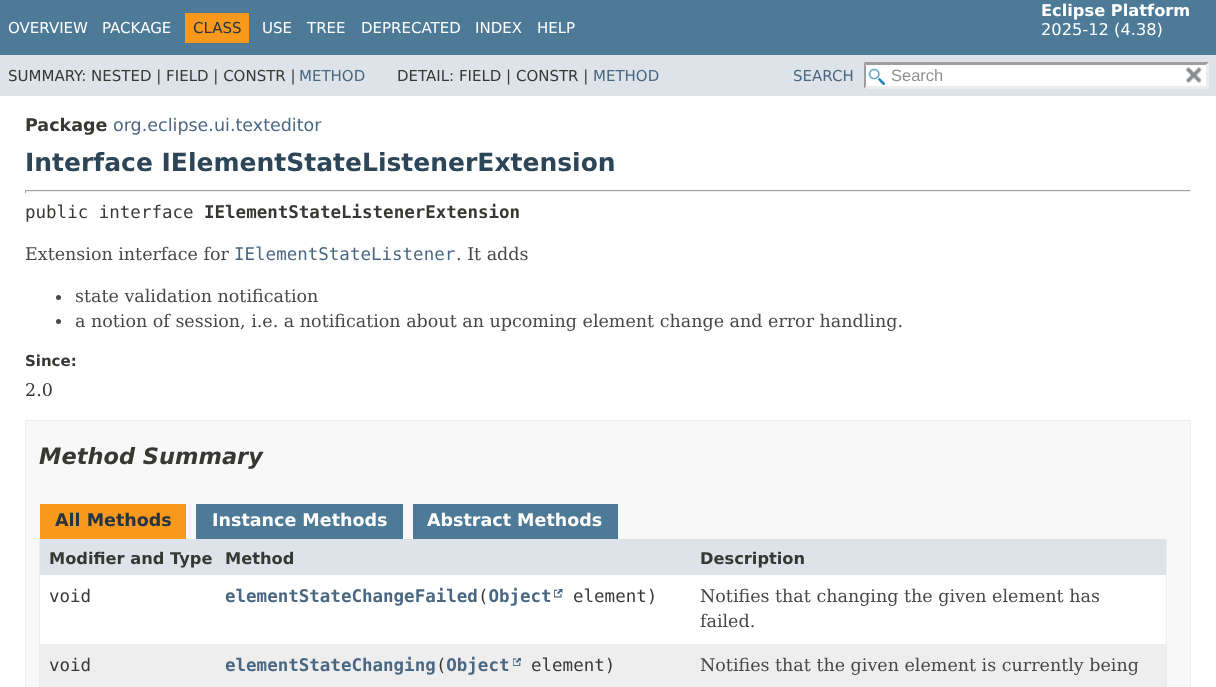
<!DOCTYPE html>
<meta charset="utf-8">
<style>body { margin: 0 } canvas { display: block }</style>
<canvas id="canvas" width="1216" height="687"></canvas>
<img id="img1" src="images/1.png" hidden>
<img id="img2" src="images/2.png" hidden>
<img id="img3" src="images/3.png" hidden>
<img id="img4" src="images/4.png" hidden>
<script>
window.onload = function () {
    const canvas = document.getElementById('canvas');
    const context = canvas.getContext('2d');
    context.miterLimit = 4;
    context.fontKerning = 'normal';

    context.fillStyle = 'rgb(255, 255, 255)';
    context.fillRect(0, 0, 1216, 687);
    context.fillStyle = 'rgb(77, 122, 151)';
    context.fillRect(0, 0, 1216, 55);
    context.fillStyle = 'rgb(248, 152, 29)';
    context.fillRect(185, 13, 64, 30);
    context.fillStyle = 'rgb(222, 227, 233)';
    context.fillRect(0, 55, 1216, 41);
    context.fillStyle = 'rgb(255, 255, 255)';
    context.fillRect(864, 63, 345, 26);
    context.drawImage(document.getElementById('img1'), 868, 68, 17, 17);
    context.fillStyle = 'rgb(158, 158, 158)';
    context.beginPath();
    context.moveTo(864, 62);
    context.lineTo(1209, 62);
    context.lineTo(1206, 65);
    context.lineTo(866, 65);
    context.closePath();
    context.fill();
    context.fillStyle = 'rgb(237, 237, 237)';
    context.beginPath();
    context.moveTo(1209, 62.5);
    context.lineTo(1209, 89);
    context.lineTo(1206, 86);
    context.lineTo(1206, 65);
    context.closePath();
    context.fill();
    context.beginPath();
    context.moveTo(1209, 89);
    context.lineTo(864, 89);
    context.lineTo(866, 86);
    context.lineTo(1206, 86);
    context.closePath();
    context.fill();
    context.fillStyle = 'rgb(158, 158, 158)';
    context.beginPath();
    context.moveTo(864, 89);
    context.lineTo(864, 62.5);
    context.lineTo(866, 65);
    context.lineTo(866, 86);
    context.closePath();
    context.fill();
    context.drawImage(document.getElementById('img2'), 1186, 67, 16, 16);
    context.fillStyle = 'rgb(159, 159, 159)';
    context.fillRect(25, 190, 1166, 1);
    context.fillStyle = 'rgb(238, 238, 238)';
    context.fillRect(1190, 190, 1, 3);
    context.fillRect(25, 191, 1166, 1);
    context.fillStyle = 'rgb(159, 159, 159)';
    context.fillRect(25, 190, 1, 3);
    context.fillStyle = 'rgb(71, 71, 71)';
    context.beginPath();
    context.arc(58.5, 297.5, 2.5, 0, 2 * Math.PI);
    context.fill();
    context.beginPath();
    context.arc(58.5, 321.5, 2.5, 0, 2 * Math.PI);
    context.fill();
    context.fillStyle = 'rgb(248, 248, 248)';
    context.beginPath();
    context.rect(25.5, 420.5, 1165, 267);
    context.fill();
    context.strokeStyle = 'rgb(237, 237, 237)';
    context.stroke();
    context.fillStyle = 'rgb(248, 152, 29)';
    context.fillRect(40, 504, 146, 35);
    context.fillStyle = 'rgb(77, 122, 151)';
    context.fillRect(196, 504, 207, 35);
    context.fillRect(413, 504, 205, 35);
    context.fillStyle = 'rgb(237, 237, 237)';
    context.fillRect(1166, 539, 1, 148);
    context.fillRect(39, 539, 1, 148);
    context.fillStyle = 'rgb(222, 227, 233)';
    context.fillRect(40, 539, 1126, 36);
    context.fillStyle = 'rgb(255, 255, 255)';
    context.fillRect(40, 575, 1126, 69);
    context.drawImage(document.getElementById('img3'), 554, 589, 9, 9);
    context.fillStyle = 'rgb(238, 238, 239)';
    context.fillRect(40, 644, 1126, 43);
    context.drawImage(document.getElementById('img4'), 513, 658, 8, 8);
    context.font = '15px DejaVu Sans';
    context.fillStyle = 'rgb(255, 255, 255)';
    context.fillText('OVERVIEW', 8, 33);
    context.fillText('PACKAGE', 102, 33);
    context.fillStyle = 'rgb(37, 52, 65)';
    context.fillText('CLASS', 193, 33);
    context.fillStyle = 'rgb(255, 255, 255)';
    context.fillText('USE', 262, 33);
    context.fillText('TREE', 307, 33);
    context.fillText('DEPRECATED', 361, 33);
    context.fillText('INDEX', 475, 33);
    context.fillText('HELP', 537, 33);
    context.font = 'bold 16.25px DejaVu Sans';
    context.fillText('Eclipse Platform', 1041, 16);
    context.font = '16.25px DejaVu Sans';
    context.fillText('2025-12 (4.38)', 1041, 35);
    context.font = '15px DejaVu Sans';
    context.fillStyle = 'rgb(53, 56, 51)';
    context.fillText('SUMMARY: NESTED | FIELD | CONSTR |', 8, 81);
    context.fillStyle = 'rgb(74, 103, 130)';
    context.fillText('METHOD', 299, 81);
    context.fillStyle = 'rgb(53, 56, 51)';
    context.fillText('DETAIL: FIELD | CONSTR |', 397, 81);
    context.fillStyle = 'rgb(74, 103, 130)';
    context.fillText('METHOD', 593, 81);
    context.fillText('SEARCH', 793, 81);
    context.font = '16.5px Liberation Sans';
    context.fillStyle = 'rgb(144, 144, 144)';
    context.fillText('Search', 891, 81);
    context.font = 'bold 17.5px DejaVu Sans';
    context.fillStyle = 'rgb(53, 56, 51)';
    context.fillText('Package', 25, 131);
    context.font = '17.5px DejaVu Sans';
    context.fillStyle = 'rgb(74, 103, 130)';
    context.fillText('org.eclipse.ui.texteditor', 113, 131);
    context.font = 'bold 25px DejaVu Sans';
    context.fillStyle = 'rgb(44, 69, 87)';
    context.fillText('Interface IElementStateListenerExtension', 25, 171);
    context.font = '17.5px DejaVu Sans Mono';
    context.fillStyle = 'rgb(53, 56, 51)';
    context.fillText('public interface', 25, 218);
    context.font = 'bold 17.5px DejaVu Sans Mono';
    context.fillText('IElementStateListenerExtension', 204, 218);
    context.font = '17.5px DejaVu Serif';
    context.fillStyle = 'rgb(71, 71, 71)';
    context.fillText('Extension interface for', 25, 260);
    context.font = '17.5px DejaVu Sans Mono';
    context.fillStyle = 'rgb(74, 103, 130)';
    context.fillText('IElementStateListener', 234, 260);
    context.font = '17.5px DejaVu Serif';
    context.fillStyle = 'rgb(71, 71, 71)';
    context.fillText('. It adds', 456, 260);
    context.fillText('state validation notification', 75, 302);
    context.fillText('a notion of session, i.e. a notification about an upcoming element change and error handling.', 75, 327);
    context.font = 'bold 15px DejaVu Sans';
    context.fillStyle = 'rgb(53, 56, 51)';
    context.fillText('Since:', 25, 366);
    context.font = '17.5px DejaVu Serif';
    context.fillText('2.0', 25, 396);
    context.font = 'italic bold 22.5px DejaVu Sans';
    context.fillText('Method Summary', 39, 464);
    context.font = 'bold 17.5px DejaVu Sans';
    context.fillStyle = 'rgb(37, 52, 65)';
    context.fillText('All Methods', 55, 526);
    context.fillStyle = 'rgb(255, 255, 255)';
    context.fillText('Instance Methods', 212, 526);
    context.fillText('Abstract Methods', 427, 526);
    context.font = 'bold 16.25px DejaVu Sans';
    context.fillStyle = 'rgb(53, 56, 51)';
    context.fillText('Modifier and Type', 49, 564);
    context.fillText('Method', 225, 564);
    context.fillText('Description', 700, 564);
    context.font = '17.5px DejaVu Sans Mono';
    context.fillText('void', 49, 602);
    context.font = 'bold 17.5px DejaVu Sans Mono';
    context.fillStyle = 'rgb(74, 103, 130)';
    context.fillText('elementStateChangeFailed Object', 225, 602);
    context.font = '17.5px DejaVu Sans Mono';
    context.fillStyle = 'rgb(53, 56, 51)';
    context.fillText('(', 478, 602);
    context.fillText('element)', 573, 602);
    context.font = '17.5px DejaVu Serif';
    context.fillStyle = 'rgb(71, 71, 71)';
    context.fillText('Notifies that changing the given element has', 700, 602);
    context.fillText('failed.', 700, 627);
    context.font = '17.5px DejaVu Sans Mono';
    context.fillStyle = 'rgb(53, 56, 51)';
    context.fillText('void', 49, 671);
    context.font = 'bold 17.5px DejaVu Sans Mono';
    context.fillStyle = 'rgb(74, 103, 130)';
    context.fillText('elementStateChanging Object', 225, 671);
    context.font = '17.5px DejaVu Sans Mono';
    context.fillStyle = 'rgb(53, 56, 51)';
    context.fillText('(', 436, 671);
    context.fillText('element)', 531, 671);
    context.font = '17.5px DejaVu Serif';
    context.fillStyle = 'rgb(71, 71, 71)';
    context.fillText('Notifies that the given element is currently being', 700, 671);
};
</script>
